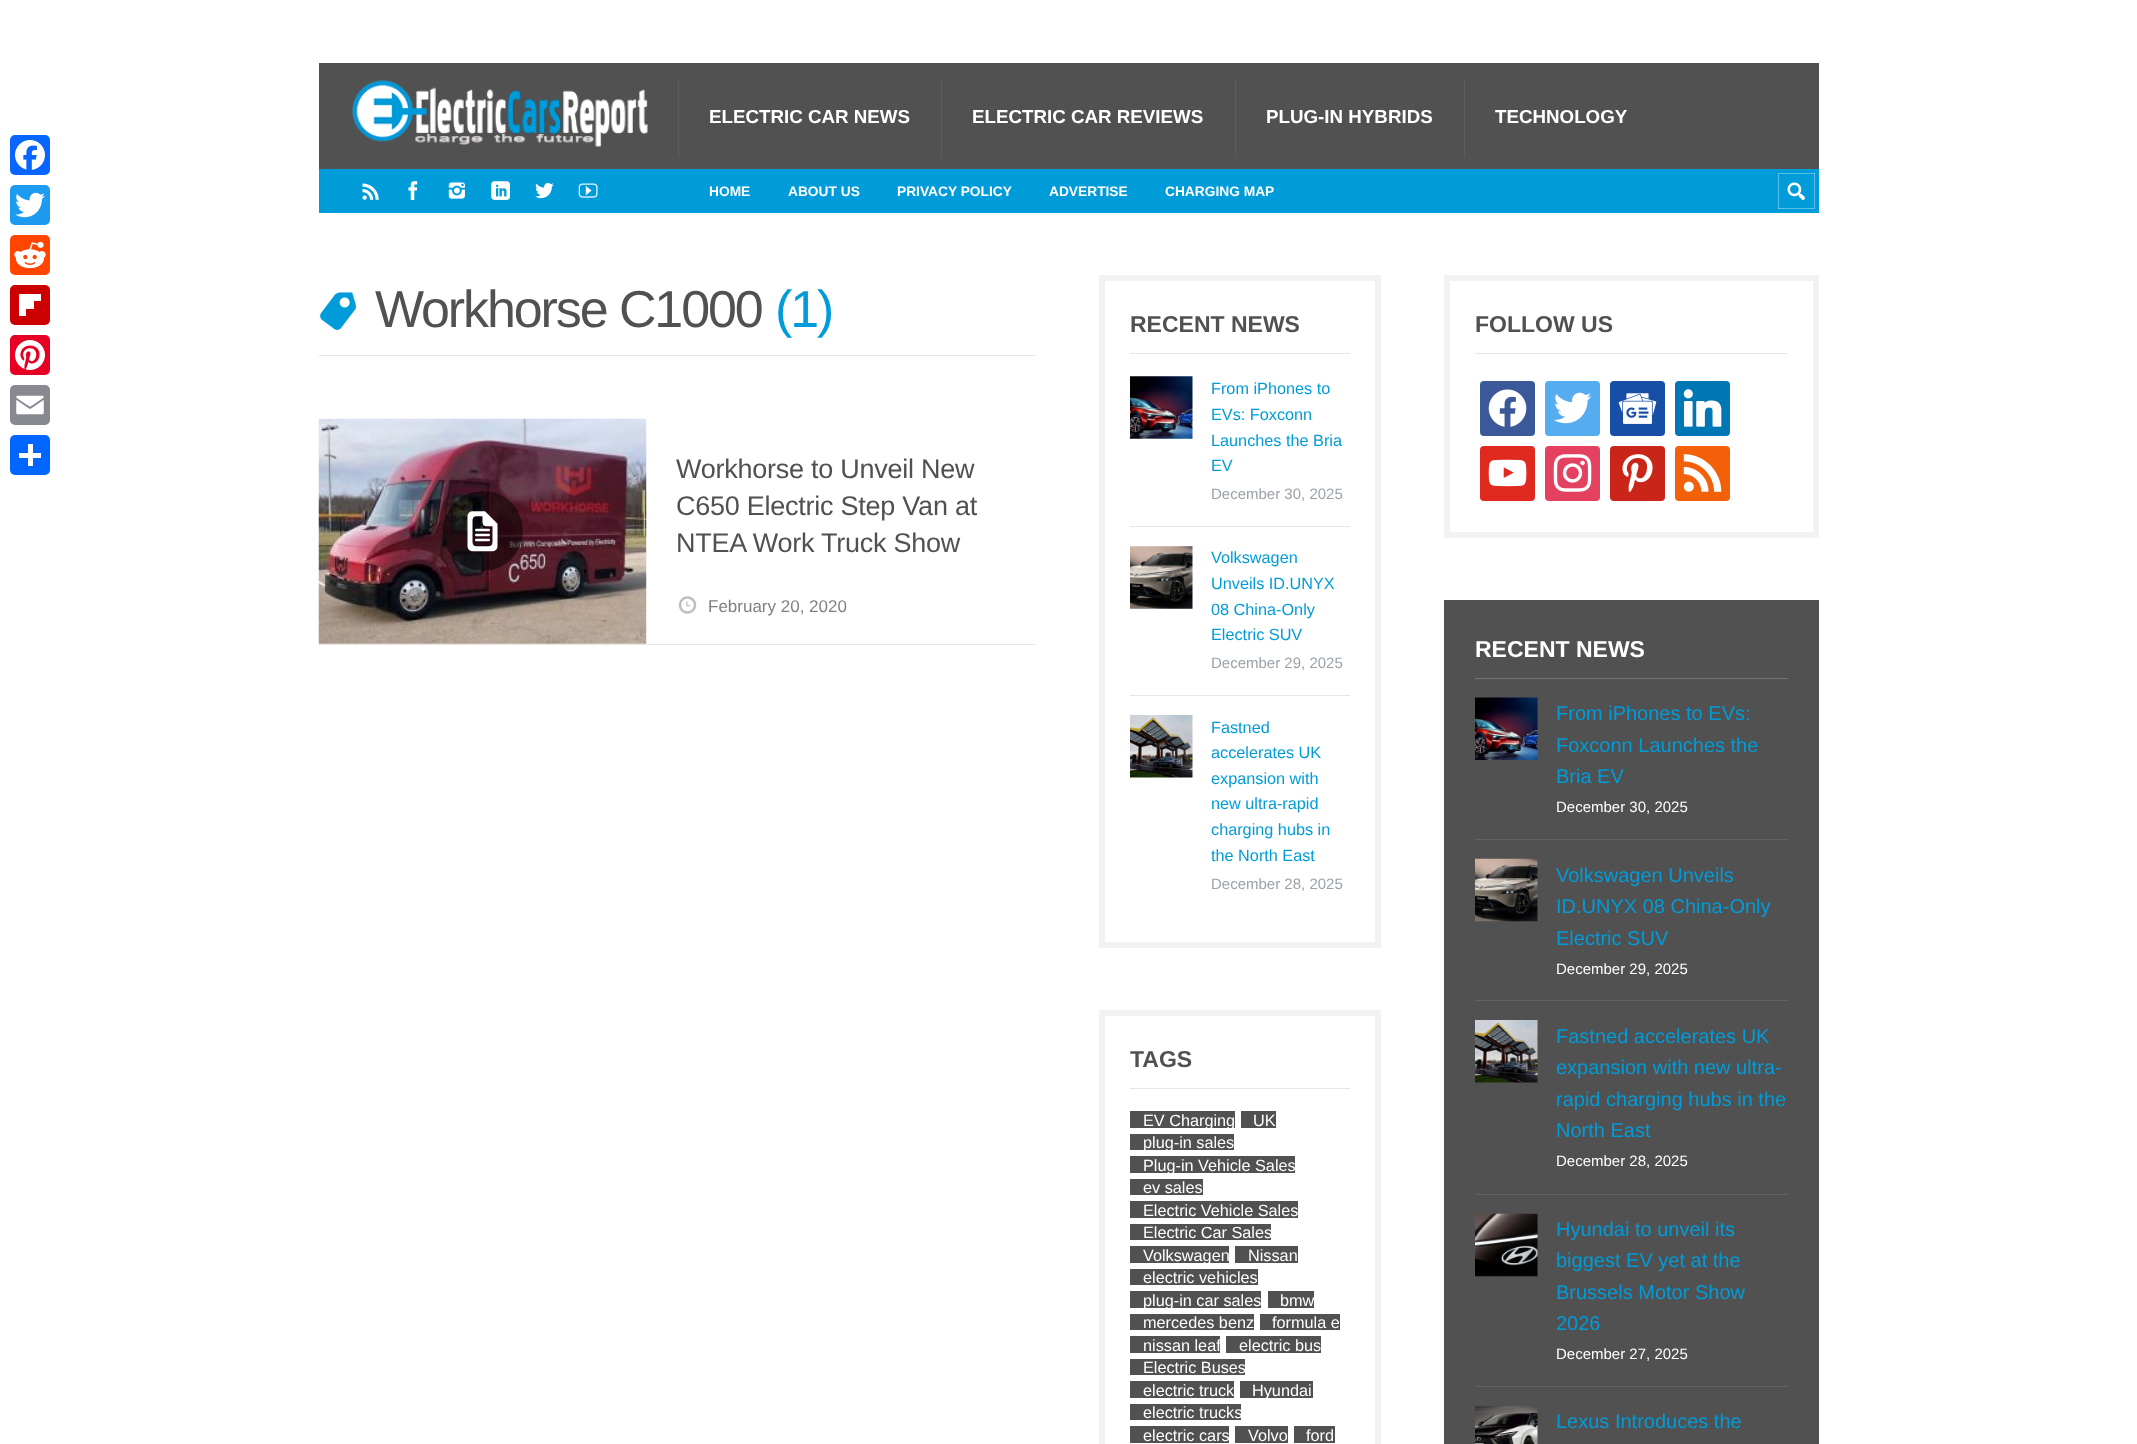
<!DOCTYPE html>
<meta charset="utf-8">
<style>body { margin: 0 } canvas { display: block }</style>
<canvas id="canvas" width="2137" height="1444"></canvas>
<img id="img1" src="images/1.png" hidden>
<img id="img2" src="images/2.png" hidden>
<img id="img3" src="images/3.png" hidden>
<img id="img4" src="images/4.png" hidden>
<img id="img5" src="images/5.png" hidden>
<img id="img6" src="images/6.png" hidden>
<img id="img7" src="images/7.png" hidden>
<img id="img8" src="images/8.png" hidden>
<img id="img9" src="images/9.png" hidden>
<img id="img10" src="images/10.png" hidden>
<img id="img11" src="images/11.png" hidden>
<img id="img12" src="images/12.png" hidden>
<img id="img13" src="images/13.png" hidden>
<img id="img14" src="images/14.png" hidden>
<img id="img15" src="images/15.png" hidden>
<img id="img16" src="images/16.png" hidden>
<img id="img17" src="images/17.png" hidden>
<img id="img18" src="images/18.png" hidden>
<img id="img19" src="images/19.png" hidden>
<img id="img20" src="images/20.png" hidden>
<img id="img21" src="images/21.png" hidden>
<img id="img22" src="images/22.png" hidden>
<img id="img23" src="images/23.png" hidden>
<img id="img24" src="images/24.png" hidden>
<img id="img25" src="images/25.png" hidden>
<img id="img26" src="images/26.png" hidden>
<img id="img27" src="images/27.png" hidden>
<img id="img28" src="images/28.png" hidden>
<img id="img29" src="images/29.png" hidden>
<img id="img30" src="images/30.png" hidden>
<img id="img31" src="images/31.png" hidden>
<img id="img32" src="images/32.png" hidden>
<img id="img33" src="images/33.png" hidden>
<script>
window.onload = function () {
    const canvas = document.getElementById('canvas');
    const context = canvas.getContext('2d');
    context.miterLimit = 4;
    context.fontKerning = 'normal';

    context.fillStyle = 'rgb(255, 255, 255)';
    context.fillRect(0, 0, 2137, 1444);
    context.fillStyle = 'rgb(8, 102, 255)';
    context.beginPath();
    context.roundRect(10, 135, 40, 40, 5);
    context.fill();
    context.drawImage(document.getElementById('img1'), 15, 140, 30, 30);
    context.fillStyle = 'rgb(29, 155, 240)';
    context.beginPath();
    context.roundRect(10, 185, 40, 40, 5);
    context.fill();
    context.drawImage(document.getElementById('img2'), 15, 192, 30, 26);
    context.fillStyle = 'rgb(255, 69, 0)';
    context.beginPath();
    context.roundRect(10, 235, 40, 40, 5);
    context.fill();
    context.drawImage(document.getElementById('img3'), 14, 241, 32, 28);
    context.fillStyle = 'rgb(204, 0, 0)';
    context.beginPath();
    context.roundRect(10, 285, 40, 40, 5);
    context.fill();
    context.fillStyle = 'rgb(255, 255, 255)';
    context.fillRect(26, 301, 8, 8);
    context.fillRect(19, 294, 22, 7);
    context.fillRect(19, 294, 7, 22);
    context.fillStyle = 'rgb(230, 0, 35)';
    context.beginPath();
    context.roundRect(10, 335, 40, 40, 5);
    context.fill();
    context.drawImage(document.getElementById('img4'), 15, 340, 30, 30);
    context.fillStyle = 'rgb(136, 137, 144)';
    context.beginPath();
    context.roundRect(10, 385, 40, 40, 5);
    context.fill();
    context.drawImage(document.getElementById('img5'), 16, 395, 28, 20);
    context.fillStyle = 'rgb(1, 102, 255)';
    context.beginPath();
    context.roundRect(10, 435, 40, 40, 5);
    context.fill();
    context.fillStyle = 'rgb(255, 255, 255)';
    context.fillRect(28, 444, 5, 22);
    context.fillRect(19, 453, 22, 5);
    context.fillStyle = 'rgb(81, 81, 81)';
    context.fillRect(319, 63, 1500, 106);
    context.drawImage(document.getElementById('img6'), 352, 80, 296, 67);
    context.fillStyle = 'rgb(93, 93, 93)';
    context.fillRect(678, 80, 1, 78);
    context.fillRect(941, 80, 1, 78);
    context.fillRect(1235, 80, 1, 78);
    context.fillRect(1464, 80, 1, 78);
    context.fillStyle = 'rgb(0, 156, 218)';
    context.fillRect(319, 169, 1500, 44);
    context.drawImage(document.getElementById('img7'), 362, 183, 17, 17);
    context.drawImage(document.getElementById('img8'), 408, 181, 10, 19);
    context.drawImage(document.getElementById('img9'), 448, 182, 17, 17);
    context.drawImage(document.getElementById('img10'), 491, 181, 19, 19);
    context.drawImage(document.getElementById('img11'), 535, 182, 19, 17);
    context.drawImage(document.getElementById('img12'), 578, 183, 20, 15);
    context.save();
    context.beginPath();
    context.rect(1778, 173, 37, 36);
    context.clip();
    context.fillStyle = 'rgb(89, 191, 231)';
    context.beginPath();
    context.moveTo(1654, 49);
    context.lineTo(1939, 49);
    context.lineTo(1939, 332);
    context.lineTo(1654, 332);
    context.closePath();
    context.moveTo(1776, 171);
    context.lineTo(1814, 171);
    context.lineTo(1814, 208);
    context.lineTo(1776, 208);
    context.closePath();
    context.fill('evenodd');
    context.fillStyle = 'rgba(255, 255, 255, 0.35)';
    context.beginPath();
    context.moveTo(1654, 49);
    context.lineTo(1939, 49);
    context.lineTo(1939, 332);
    context.lineTo(1654, 332);
    context.closePath();
    context.moveTo(1779, 174);
    context.lineTo(1816, 174);
    context.lineTo(1816, 210);
    context.lineTo(1779, 210);
    context.closePath();
    context.fill('evenodd');
    context.restore();
    context.drawImage(document.getElementById('img13'), 1787, 182, 18, 18);
    context.fillStyle = 'rgb(230, 230, 230)';
    context.fillRect(319, 355, 717, 1);
    context.drawImage(document.getElementById('img14'), 320, 292, 36, 38);
    context.fillRect(319, 644, 717, 1);
    context.drawImage(document.getElementById('img15'), 318, 418, 329, 226);
    context.fillStyle = 'rgba(0, 0, 0, 0.5)';
    context.beginPath();
    context.arc(483, 531, 40, 0, 2 * Math.PI);
    context.fill();
    context.drawImage(document.getElementById('img16'), 467, 511, 31, 41);
    context.drawImage(document.getElementById('img17'), 678, 596, 19, 18);
    context.strokeStyle = 'rgb(242, 242, 242)';
    context.lineWidth = 6;
    context.strokeRect(1102, 278, 276, 667);
    context.fillStyle = 'rgb(230, 230, 230)';
    context.fillRect(1130, 353, 220, 1);
    context.drawImage(document.getElementById('img18'), 1130, 376, 63, 63);
    context.fillRect(1130, 526, 220, 1);
    context.drawImage(document.getElementById('img19'), 1130, 546, 63, 63);
    context.fillRect(1130, 695, 220, 1);
    context.drawImage(document.getElementById('img20'), 1130, 715, 63, 63);
    context.strokeRect(1102, 1013, 276, 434);
    context.fillRect(1130, 1088, 220, 1);
    context.fillStyle = 'rgb(81, 81, 81)';
    context.fillRect(1130, 1111, 105, 17);
    context.fillRect(1241, 1111, 35, 17);
    context.fillRect(1130, 1134, 104, 16);
    context.fillRect(1130, 1156, 165, 17);
    context.fillRect(1130, 1179, 73, 16);
    context.fillRect(1130, 1201, 168, 17);
    context.fillRect(1130, 1224, 141, 16);
    context.fillRect(1130, 1246, 99, 17);
    context.fillRect(1235, 1246, 63, 17);
    context.fillRect(1130, 1269, 128, 16);
    context.fillRect(1130, 1291, 131, 17);
    context.fillRect(1268, 1291, 46, 17);
    context.fillRect(1130, 1314, 124, 16);
    context.fillRect(1260, 1314, 80, 16);
    context.fillRect(1130, 1336, 90, 17);
    context.fillRect(1226, 1336, 95, 17);
    context.fillRect(1130, 1359, 115, 16);
    context.fillRect(1130, 1381, 104, 17);
    context.fillRect(1240, 1381, 73, 17);
    context.fillRect(1130, 1404, 111, 16);
    context.fillRect(1130, 1426, 99, 17);
    context.fillRect(1235, 1426, 53, 17);
    context.fillRect(1294, 1426, 41, 17);
    context.strokeRect(1447, 278, 369, 257);
    context.fillStyle = 'rgb(230, 230, 230)';
    context.fillRect(1475, 353, 313, 1);
    context.fillStyle = 'rgb(59, 89, 152)';
    context.beginPath();
    context.roundRect(1480, 381, 55, 55, 4);
    context.fill();
    context.drawImage(document.getElementById('img21'), 1488, 389, 39, 38);
    context.fillStyle = 'rgb(85, 172, 238)';
    context.beginPath();
    context.roundRect(1545, 381, 55, 55, 4);
    context.fill();
    context.drawImage(document.getElementById('img22'), 1554, 392, 38, 32);
    context.fillStyle = 'rgb(23, 78, 166)';
    context.beginPath();
    context.roundRect(1610, 381, 55, 55, 4);
    context.fill();
    context.drawImage(document.getElementById('img23'), 1618, 393, 39, 31);
    context.fillStyle = 'rgb(0, 119, 181)';
    context.beginPath();
    context.roundRect(1675, 381, 55, 55, 4);
    context.fill();
    context.drawImage(document.getElementById('img24'), 1683, 389, 39, 38);
    context.fillStyle = 'rgb(224, 42, 32)';
    context.beginPath();
    context.roundRect(1480, 446, 55, 55, 4);
    context.fill();
    context.drawImage(document.getElementById('img25'), 1488, 459, 39, 28);
    context.fillStyle = 'rgb(228, 64, 95)';
    context.beginPath();
    context.roundRect(1545, 446, 55, 55, 4);
    context.fill();
    context.drawImage(document.getElementById('img26'), 1553, 454, 39, 38);
    context.fillStyle = 'rgb(201, 38, 25)';
    context.beginPath();
    context.roundRect(1610, 446, 55, 55, 4);
    context.fill();
    context.drawImage(document.getElementById('img27'), 1622, 454, 31, 38);
    context.fillStyle = 'rgb(242, 97, 9)';
    context.beginPath();
    context.roundRect(1675, 446, 55, 55, 4);
    context.fill();
    context.drawImage(document.getElementById('img28'), 1683, 454, 39, 38);
    context.fillStyle = 'rgb(81, 81, 81)';
    context.fillRect(1444, 600, 375, 844);
    context.fillStyle = 'rgb(116, 116, 116)';
    context.fillRect(1475, 678, 313, 1);
    context.drawImage(document.getElementById('img29'), 1475, 697, 63, 63);
    context.fillStyle = 'rgb(98, 98, 98)';
    context.fillRect(1475, 839, 313, 1);
    context.drawImage(document.getElementById('img30'), 1475, 858, 63, 64);
    context.fillRect(1475, 1000, 313, 1);
    context.drawImage(document.getElementById('img31'), 1475, 1020, 63, 63);
    context.fillRect(1475, 1194, 313, 1);
    context.drawImage(document.getElementById('img32'), 1475, 1213, 63, 64);
    context.fillRect(1475, 1386, 313, 1);
    context.drawImage(document.getElementById('img33'), 1475, 1406, 63, 38);
    context.font = 'bold 18.75px Liberation Sans';
    context.fillStyle = 'rgb(255, 255, 255)';
    context.fillText('ELECTRIC CAR NEWS', 709, 123);
    context.fillText('ELECTRIC CAR REVIEWS', 972, 123);
    context.fillText('PLUG-IN HYBRIDS', 1266, 123);
    context.fillText('TECHNOLOGY', 1495, 123);
    context.font = 'bold 13.75px Liberation Sans';
    context.fillText('HOME', 709, 196);
    context.fillText('ABOUT US', 788, 196);
    context.fillText('PRIVACY POLICY', 897, 196);
    context.fillText('ADVERTISE', 1049, 196);
    context.fillText('CHARGING MAP', 1165, 196);
    context.letterSpacing = '-2.1px';
    context.font = '52px Liberation Sans';
    context.fillStyle = 'rgb(81, 81, 81)';
    context.fillText('Workhorse C1000', 375, 327);
    context.fillStyle = 'rgb(0, 156, 218)';
    context.fillText('(1)', 775, 327);
    context.letterSpacing = '-0.25px';
    context.font = '27px Liberation Sans';
    context.fillStyle = 'rgb(81, 81, 81)';
    context.fillText('Workhorse to Unveil New', 676, 478);
    context.fillText('C650 Electric Step Van at', 676, 515);
    context.fillText('NTEA Work Truck Show', 676, 552);
    context.letterSpacing = '0px';
    context.font = '17px Liberation Sans';
    context.fillStyle = 'rgb(128, 128, 128)';
    context.fillText('February 20, 2020', 708, 612);
    context.font = 'bold 23px Liberation Sans';
    context.fillStyle = 'rgb(81, 81, 81)';
    context.fillText('RECENT NEWS', 1130, 332);
    context.font = '16.25px Liberation Sans';
    context.fillStyle = 'rgb(0, 156, 218)';
    context.fillText('From iPhones to', 1211, 394);
    context.fillText('EVs: Foxconn', 1211, 420);
    context.fillText('Launches the Bria', 1211, 446);
    context.fillText('EV', 1211, 471);
    context.font = '15px Liberation Sans';
    context.fillStyle = 'rgb(154, 162, 169)';
    context.fillText('December 30, 2025', 1211, 499);
    context.font = '16.25px Liberation Sans';
    context.fillStyle = 'rgb(0, 156, 218)';
    context.fillText('Volkswagen', 1211, 563);
    context.fillText('Unveils ID.UNYX', 1211, 589);
    context.fillText('08 China-Only', 1211, 615);
    context.fillText('Electric SUV', 1211, 640);
    context.font = '15px Liberation Sans';
    context.fillStyle = 'rgb(154, 162, 169)';
    context.fillText('December 29, 2025', 1211, 668);
    context.font = '16.25px Liberation Sans';
    context.fillStyle = 'rgb(0, 156, 218)';
    context.fillText('Fastned', 1211, 733);
    context.fillText('accelerates UK', 1211, 758);
    context.fillText('expansion with', 1211, 784);
    context.fillText('new ultra-rapid', 1211, 809);
    context.fillText('charging hubs in', 1211, 835);
    context.fillText('the North East', 1211, 861);
    context.font = '15px Liberation Sans';
    context.fillStyle = 'rgb(154, 162, 169)';
    context.fillText('December 28, 2025', 1211, 889);
    context.font = 'bold 23px Liberation Sans';
    context.fillStyle = 'rgb(81, 81, 81)';
    context.fillText('TAGS', 1130, 1067);
    context.font = '16.25px Liberation Sans';
    context.fillStyle = 'rgb(255, 255, 255)';
    context.fillText('EV Charging', 1143, 1126);
    context.fillText('UK', 1253, 1126);
    context.fillText('plug-in sales', 1143, 1148);
    context.fillText('Plug-in Vehicle Sales', 1143, 1171);
    context.fillText('ev sales', 1143, 1193);
    context.fillText('Electric Vehicle Sales', 1143, 1216);
    context.fillText('Electric Car Sales', 1143, 1238);
    context.fillText('Volkswagen', 1143, 1261);
    context.fillText('Nissan', 1248, 1261);
    context.fillText('electric vehicles', 1143, 1283);
    context.fillText('plug-in car sales', 1143, 1306);
    context.fillText('bmw', 1280, 1306);
    context.fillText('mercedes benz', 1143, 1328);
    context.fillText('formula e', 1272, 1328);
    context.fillText('nissan leaf', 1143, 1351);
    context.fillText('electric bus', 1239, 1351);
    context.fillText('Electric Buses', 1143, 1373);
    context.fillText('electric truck', 1143, 1396);
    context.fillText('Hyundai', 1252, 1396);
    context.fillText('electric trucks', 1143, 1418);
    context.fillText('electric cars', 1143, 1441);
    context.fillText('Volvo', 1248, 1441);
    context.fillText('ford', 1306, 1441);
    context.font = 'bold 23px Liberation Sans';
    context.fillStyle = 'rgb(81, 81, 81)';
    context.fillText('FOLLOW US', 1475, 332);
    context.fillStyle = 'rgb(255, 255, 255)';
    context.fillText('RECENT NEWS', 1475, 657);
    context.font = '20px Liberation Sans';
    context.fillStyle = 'rgb(0, 156, 218)';
    context.fillText('From iPhones to EVs:', 1556, 720);
    context.fillText('Foxconn Launches the', 1556, 752);
    context.fillText('Bria EV', 1556, 783);
    context.font = '15px Liberation Sans';
    context.fillStyle = 'rgb(255, 255, 255)';
    context.fillText('December 30, 2025', 1556, 812);
    context.font = '20px Liberation Sans';
    context.fillStyle = 'rgb(0, 156, 218)';
    context.fillText('Volkswagen Unveils', 1556, 882);
    context.fillText('ID.UNYX 08 China-Only', 1556, 913);
    context.fillText('Electric SUV', 1556, 945);
    context.font = '15px Liberation Sans';
    context.fillStyle = 'rgb(255, 255, 255)';
    context.fillText('December 29, 2025', 1556, 974);
    context.font = '20px Liberation Sans';
    context.fillStyle = 'rgb(0, 156, 218)';
    context.fillText('Fastned accelerates UK', 1556, 1043);
    context.fillText('expansion with new ultra-', 1556, 1074);
    context.fillText('rapid charging hubs in the', 1556, 1106);
    context.fillText('North East', 1556, 1137);
    context.font = '15px Liberation Sans';
    context.fillStyle = 'rgb(255, 255, 255)';
    context.fillText('December 28, 2025', 1556, 1166);
    context.font = '20px Liberation Sans';
    context.fillStyle = 'rgb(0, 156, 218)';
    context.fillText('Hyundai to unveil its', 1556, 1236);
    context.fillText('biggest EV yet at the', 1556, 1267);
    context.fillText('Brussels Motor Show', 1556, 1299);
    context.fillText('2026', 1556, 1330);
    context.font = '15px Liberation Sans';
    context.fillStyle = 'rgb(255, 255, 255)';
    context.fillText('December 27, 2025', 1556, 1359);
    context.font = '20px Liberation Sans';
    context.fillStyle = 'rgb(0, 156, 218)';
    context.fillText('Lexus Introduces the', 1556, 1428);
};
</script>
